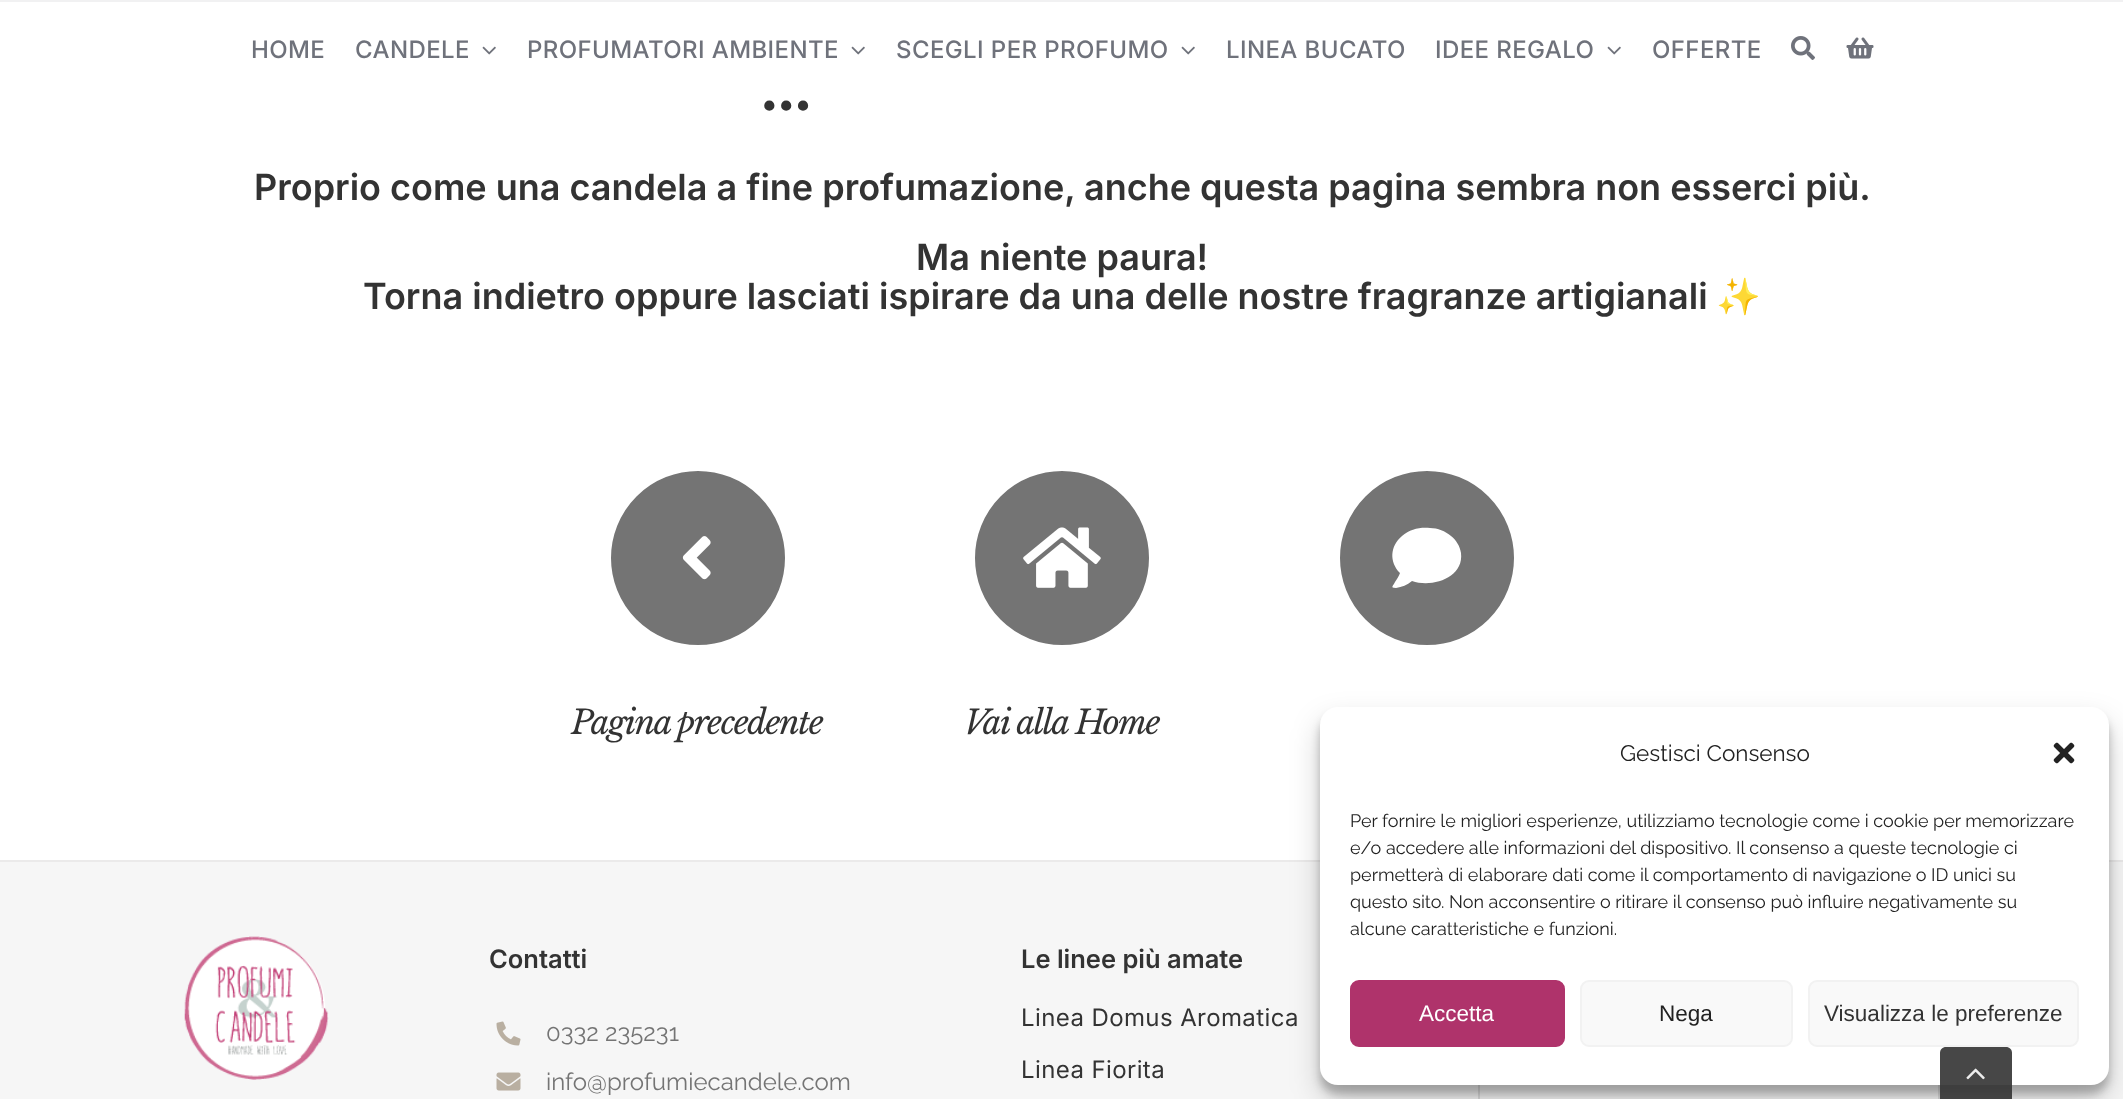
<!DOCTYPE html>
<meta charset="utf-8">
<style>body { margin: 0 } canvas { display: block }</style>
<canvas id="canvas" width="2123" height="1099"></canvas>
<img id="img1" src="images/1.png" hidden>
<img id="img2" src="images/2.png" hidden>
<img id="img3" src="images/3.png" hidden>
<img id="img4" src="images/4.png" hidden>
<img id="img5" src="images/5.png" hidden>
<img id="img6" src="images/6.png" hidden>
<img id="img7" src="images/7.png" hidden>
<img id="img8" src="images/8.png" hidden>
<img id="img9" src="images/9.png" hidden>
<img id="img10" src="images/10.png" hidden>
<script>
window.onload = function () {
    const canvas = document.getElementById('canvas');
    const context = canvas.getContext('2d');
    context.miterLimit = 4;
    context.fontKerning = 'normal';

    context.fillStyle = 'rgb(255, 255, 255)';
    context.fillRect(0, 0, 2123, 1099);
    context.fillStyle = 'rgb(241, 241, 242)';
    context.fillRect(0, 0, 2123, 2);
    context.drawImage(document.getElementById('img1'), 482, 46, 14, 9);
    context.drawImage(document.getElementById('img1'), 851, 46, 14, 9);
    context.drawImage(document.getElementById('img1'), 1181, 46, 14, 9);
    context.drawImage(document.getElementById('img1'), 1607, 46, 14, 9);
    context.drawImage(document.getElementById('img2'), 1791, 36, 24, 24);
    context.drawImage(document.getElementById('img3'), 1846, 37, 28, 22);
    context.fillStyle = 'rgb(116, 116, 116)';
    context.beginPath();
    context.arc(1427, 558, 88.5, 0, 2 * Math.PI);
    context.fill();
    context.strokeStyle = 'rgb(255, 255, 255)';
    context.lineWidth = 3;
    context.stroke();
    context.fillStyle = 'rgb(255, 255, 255)';
    context.beginPath();
    context.moveTo(1402, 536);
    context.bezierCurveTo(1410, 529, 1420, 527, 1430, 528);
    context.bezierCurveTo(1438, 528, 1445, 531, 1451, 536);
    context.bezierCurveTo(1456, 540, 1460, 546, 1461, 553);
    context.bezierCurveTo(1464, 578, 1432, 588, 1412, 581);
    context.bezierCurveTo(1407, 585, 1402, 587, 1396, 588);
    context.bezierCurveTo(1389, 588, 1394, 585, 1395, 582);
    context.bezierCurveTo(1397, 579, 1399, 576, 1400, 573);
    context.bezierCurveTo(1389, 562, 1390, 546, 1402, 536);
    context.closePath();
    context.fill();
    context.fillStyle = 'rgb(116, 116, 116)';
    context.beginPath();
    context.arc(698, 558, 88.5, 0, 2 * Math.PI);
    context.fill();
    context.stroke();
    context.drawImage(document.getElementById('img4'), 682, 536, 29, 44);
    context.beginPath();
    context.arc(1062, 558, 88.5, 0, 2 * Math.PI);
    context.fill();
    context.stroke();
    context.drawImage(document.getElementById('img5'), 1023, 527, 78, 61);
    context.fillStyle = 'rgb(246, 246, 246)';
    context.fillRect(0, 862, 2123, 237);
    context.fillStyle = 'rgb(235, 234, 234)';
    context.fillRect(0, 860, 2123, 2);
    context.drawImage(document.getElementById('img6'), 184, 936, 145, 144);
    context.drawImage(document.getElementById('img7'), 496, 1021, 25, 25);
    context.drawImage(document.getElementById('img8'), 496, 1072, 25, 19);
    context.strokeStyle = 'rgb(221, 221, 221)';
    context.lineWidth = 2;
    context.strokeRect(1479, 1027, 460, 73);
    context.fillStyle = 'rgba(0, 0, 0, 0.23)';
    context.filter = 'blur(4.5px)';
    context.beginPath();
    context.roundRect(1320, 716, 789, 378, 18);
    context.fill();
    context.filter = 'none';
    context.fillStyle = 'rgba(0, 0, 0, 0.19)';
    context.filter = 'blur(15px)';
    context.beginPath();
    context.roundRect(1320, 722, 789, 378, 18);
    context.fill();
    context.filter = 'none';
    context.fillStyle = 'rgb(255, 255, 255)';
    context.beginPath();
    context.roundRect(1320, 707, 789, 378, 18);
    context.fill();
    context.drawImage(document.getElementById('img9'), 2053, 742, 22, 22);
    context.fillStyle = 'rgb(175, 51, 107)';
    context.beginPath();
    context.roundRect(1351, 981, 213, 65, 8);
    context.fill();
    context.strokeStyle = 'rgb(175, 51, 107)';
    context.stroke();
    context.fillStyle = 'rgb(249, 249, 249)';
    context.beginPath();
    context.roundRect(1581, 981, 211, 65, 8);
    context.fill();
    context.strokeStyle = 'rgb(242, 242, 242)';
    context.stroke();
    context.beginPath();
    context.roundRect(1809, 981, 269, 65, 8);
    context.fill();
    context.stroke();
    context.fillStyle = 'rgba(51, 51, 51, 0.9)';
    context.beginPath();
    context.moveTo(1946, 1047);
    context.lineTo(2006, 1047);
    context.bezierCurveTo(2009.5, 1047, 2012, 1049.5, 2012, 1053);
    context.lineTo(2012, 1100);
    context.lineTo(1940, 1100);
    context.lineTo(1940, 1053);
    context.bezierCurveTo(1940, 1049.5, 1942.5, 1047, 1946, 1047);
    context.closePath();
    context.fill();
    context.drawImage(document.getElementById('img10'), 1966, 1068, 19, 12);
    context.letterSpacing = '0.4px';
    context.font = '500 24px Inter';
    context.fillStyle = 'rgb(111, 114, 123)';
    context.fillText('HOME', 251, 58);
    context.fillText('CANDELE', 355, 58);
    context.fillText('PROFUMATORI AMBIENTE', 527, 58);
    context.fillText('SCEGLI PER PROFUMO', 896, 58);
    context.fillText('LINEA BUCATO', 1226, 58);
    context.fillText('IDEE REGALO', 1435, 58);
    context.fillText('OFFERTE', 1652, 58);
    context.letterSpacing = '-4px';
    context.wordSpacing = '1px';
    context.font = '78px Libre Baskerville';
    context.fillStyle = 'rgb(51, 51, 51)';
    context.fillText('…', 759, 110);
    context.letterSpacing = '0px';
    context.wordSpacing = '0px';
    context.font = '600 36px Inter';
    context.fillText('Proprio come una candela a fine profumazione, anche questa pagina sembra non esserci più.', 254, 200);
    context.fillText('Ma niente paura!', 916, 270);
    context.fillText('Torna indietro oppure lasciati ispirare da una delle nostre fragranze artigianali', 363, 309);
    context.font = 'bold 36px Noto Color Emoji';
    context.fillText('✨', 1716, 309);
    context.letterSpacing = '-1.5px';
    context.font = 'italic 33px Libre Baskerville';
    context.fillText('Pagina precedente', 571, 734);
    context.fillText('Vai alla Home', 964, 734);
    context.letterSpacing = '0px';
    context.font = '600 25.5px Inter';
    context.fillText('Contatti', 489, 968);
    context.font = '24px Raleway';
    context.fillStyle = 'rgb(116, 116, 116)';
    context.fillText('0332 235231', 546, 1041);
    context.fillText('info@profumiecandele.com', 546, 1090);
    context.font = '600 25.5px Inter';
    context.fillStyle = 'rgb(51, 51, 51)';
    context.fillText('Le linee più amate', 1021, 968);
    context.letterSpacing = '0.4px';
    context.font = '24px Inter';
    context.fillText('Linea Domus Aromatica', 1021, 1026);
    context.fillText('Linea Fiorita', 1021, 1078);
    context.letterSpacing = '0px';
    context.font = '22.5px Raleway';
    context.fillStyle = 'rgb(34, 34, 34)';
    context.fillText('Gestisci Consenso', 1620, 761);
    context.font = '18px Raleway';
    context.fillText('Per fornire le migliori esperienze, utilizziamo tecnologie come i cookie per memorizzare', 1350, 827);
    context.fillText('e/o accedere alle informazioni del dispositivo. Il consenso a queste tecnologie ci', 1350, 854);
    context.fillText('permetterà di elaborare dati come il comportamento di navigazione o ID unici su', 1350, 881);
    context.fillText('questo sito. Non acconsentire o ritirare il consenso può influire negativamente su', 1350, 908);
    context.fillText('alcune caratteristiche e funzioni.', 1350, 935);
    context.font = '22.5px Liberation Sans';
    context.fillStyle = 'rgb(255, 255, 255)';
    context.fillText('Accetta', 1419, 1021);
    context.fillStyle = 'rgb(34, 34, 34)';
    context.fillText('Nega', 1659, 1021);
    context.fillStyle = 'rgb(51, 51, 51)';
    context.fillText('Visualizza le preferenze', 1824, 1021);
};
</script>
